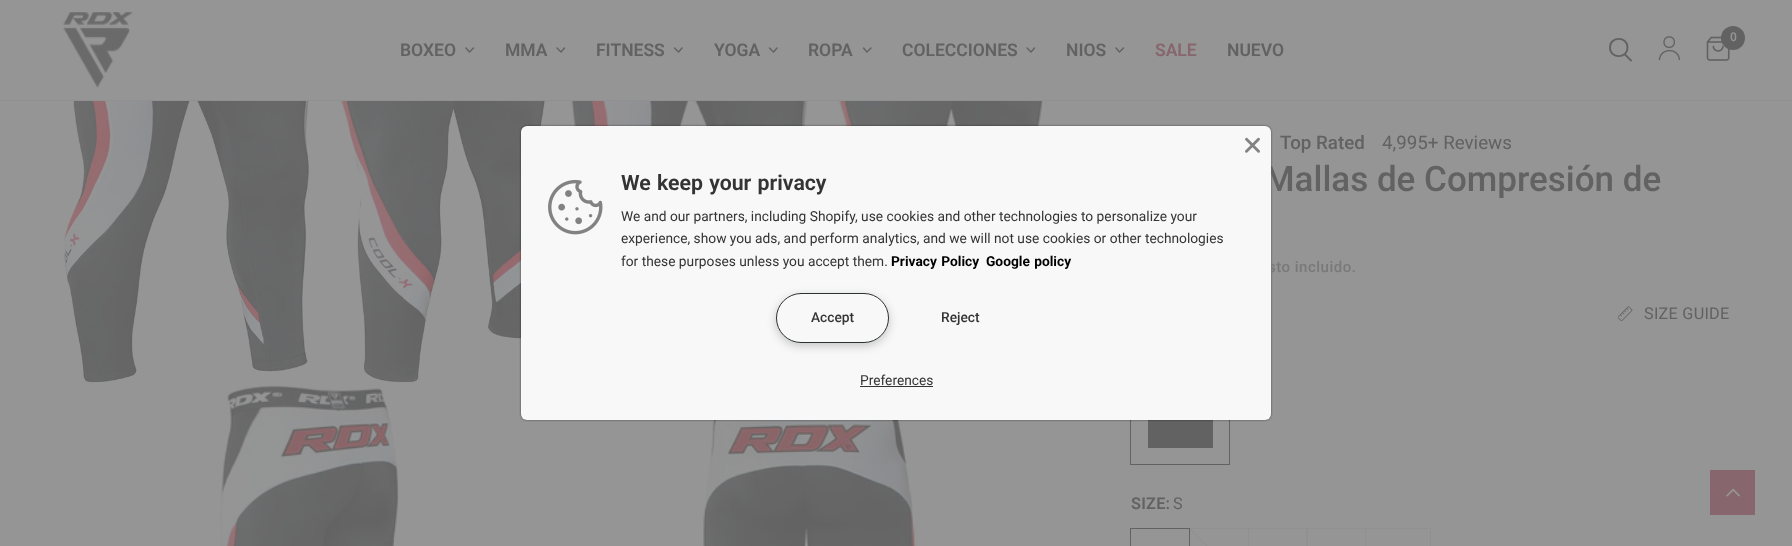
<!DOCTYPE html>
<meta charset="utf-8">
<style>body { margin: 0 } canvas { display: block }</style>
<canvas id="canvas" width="1792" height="546"></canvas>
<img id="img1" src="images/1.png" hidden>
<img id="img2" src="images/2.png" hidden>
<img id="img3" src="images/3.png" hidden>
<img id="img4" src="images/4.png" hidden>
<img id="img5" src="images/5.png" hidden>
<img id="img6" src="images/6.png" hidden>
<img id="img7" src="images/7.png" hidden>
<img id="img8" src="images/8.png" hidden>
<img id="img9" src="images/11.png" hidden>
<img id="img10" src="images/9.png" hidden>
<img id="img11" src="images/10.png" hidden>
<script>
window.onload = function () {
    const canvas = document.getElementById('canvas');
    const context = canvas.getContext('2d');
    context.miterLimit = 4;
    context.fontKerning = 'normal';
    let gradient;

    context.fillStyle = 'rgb(149, 149, 149)';
    context.fillRect(0, 0, 1792, 546);
    context.fillStyle = 'rgb(144, 144, 144)';
    context.fillRect(0, 100, 1792, 1);
    context.drawImage(document.getElementById('img1'), 63, 12, 70, 76);
    context.beginPath();
    context.moveTo(1625, 54.5);
    context.lineTo(1631, 60.5);
    context.moveTo(1627.5, 47.5);
    context.bezierCurveTo(1627.5, 59, 1610, 59, 1610, 47.5);
    context.bezierCurveTo(1610, 36, 1627.5, 36, 1627.5, 47.5);
    context.closePath();
    context.strokeStyle = 'rgb(98, 98, 98)';
    context.lineWidth = 1.8;
    context.lineCap = 'round';
    context.lineJoin = 'round';
    context.stroke();
    context.drawImage(document.getElementById('img2'), 1658, 36, 23, 24);
    context.drawImage(document.getElementById('img3'), 1706, 36, 24, 25);
    context.fillStyle = 'rgb(98, 98, 98)';
    context.beginPath();
    context.arc(1733, 38, 12, 0, 2 * Math.PI);
    context.fill();
    context.beginPath();
    context.moveTo(473.5, 48);
    context.lineTo(469.5, 52);
    context.lineTo(466, 48);
    context.lineWidth = 1.4;
    context.stroke();
    context.beginPath();
    context.moveTo(564.5, 48);
    context.lineTo(561, 52);
    context.lineTo(557, 48);
    context.stroke();
    context.beginPath();
    context.moveTo(682, 48);
    context.lineTo(678.5, 52);
    context.lineTo(674.5, 48);
    context.stroke();
    context.beginPath();
    context.moveTo(777, 48);
    context.lineTo(773.5, 52);
    context.lineTo(769.5, 48);
    context.stroke();
    context.beginPath();
    context.moveTo(871, 48);
    context.lineTo(867, 52);
    context.lineTo(863.5, 48);
    context.stroke();
    context.beginPath();
    context.moveTo(1034.5, 48);
    context.lineTo(1031, 52);
    context.lineTo(1027, 48);
    context.stroke();
    context.beginPath();
    context.moveTo(1123.5, 48);
    context.lineTo(1119.5, 52);
    context.lineTo(1116, 48);
    context.stroke();
    context.drawImage(document.getElementById('img4'), 63, 101, 495, 282);
    context.drawImage(document.getElementById('img5'), 561, 101, 494, 25);
    context.drawImage(document.getElementById('img6'), 219, 386, 181, 160);
    context.drawImage(document.getElementById('img7'), 703, 420, 215, 126);
    context.drawImage(document.getElementById('img8'), 1618, 306, 15, 15);
    context.lineWidth = 1;
    context.lineJoin = 'miter';
    context.strokeRect(1130.5, 365.5, 99, 99);
    context.fillRect(1148, 420, 65, 28);
    context.strokeStyle = 'rgb(144, 144, 144)';
    context.strokeRect(1189.5, 528.5, 59, 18);
    context.strokeStyle = 'rgb(98, 98, 98)';
    context.strokeRect(1130.5, 528.5, 59, 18);
    gradient = context.createLinearGradient(1249, 528, 1189, 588);
    gradient.addColorStop(0.49, 'rgba(144, 144, 144, 0)');
    gradient.addColorStop(0.5, 'rgb(144, 144, 144)');
    gradient.addColorStop(0.51, 'rgba(144, 144, 144, 0)');
    context.fillStyle = gradient;
    context.fillRect(1190, 529, 17, 17);
    context.strokeStyle = 'rgb(144, 144, 144)';
    context.strokeRect(1248.5, 528.5, 59, 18);
    context.strokeRect(1306.5, 528.5, 59, 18);
    context.strokeRect(1365.5, 528.5, 65, 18);
    context.fillStyle = 'rgba(0, 0, 0, 0.5)';
    context.filter = 'blur(1px)';
    context.beginPath();
    context.roundRect(521, 126, 750, 294, 6);
    context.fill();
    context.filter = 'none';
    context.fillStyle = 'rgb(135, 102, 109)';
    context.fillRect(1710, 470, 45, 45);
    context.drawImage(document.getElementById('img9'), 1726, 488, 14, 9);
    context.font = '600 12px Roboto';
    context.fillStyle = 'rgb(149, 149, 149)';
    context.fillText('0', 1730, 41);
    context.font = '600 17.5px Roboto';
    context.fillStyle = 'rgb(98, 98, 98)';
    context.fillText('BOXEO', 400, 56);
    context.fillText('MMA', 505, 56);
    context.fillText('FITNESS', 596, 56);
    context.fillText('YOGA', 714, 56);
    context.fillText('ROPA', 808, 56);
    context.fillText('COLECCIONES', 902, 56);
    context.fillText('NIOS', 1066, 56);
    context.fillStyle = 'rgb(135, 102, 109)';
    context.fillText('SALE', 1155, 56);
    context.fillStyle = 'rgb(98, 98, 98)';
    context.fillText('NUEVO', 1227, 56);
    context.font = '500 18.75px Roboto';
    context.fillText('Top Rated', 1280, 149);
    context.font = '18.75px Roboto';
    context.fillText('4,995+ Reviews', 1382, 149);
    context.font = '500 35px Roboto';
    context.fillText('Mallas de Compresión de', 1264, 191);
    context.letterSpacing = '0.5px';
    context.font = '500 15px Roboto';
    context.fillStyle = 'rgb(121, 121, 121)';
    context.fillText('sto incluido.', 1268, 272);
    context.letterSpacing = '0.25px';
    context.font = '16.25px Roboto';
    context.fillStyle = 'rgb(98, 98, 98)';
    context.fillText('SIZE GUIDE', 1644, 319);
    context.font = '600 16.25px Roboto';
    context.fillText('SIZE:', 1131, 509);
    context.font = '16.25px Roboto';
    context.fillText('S', 1173, 509);
    context.fillStyle = 'rgb(248, 248, 248)';
    context.beginPath();
    context.roundRect(521, 126, 750, 294, 6);
    context.fill();
    context.drawImage(document.getElementById('img10'), 1245, 137, 15, 16);
    context.drawImage(document.getElementById('img11'), 548, 179, 55, 56);
    context.letterSpacing = '0px';
    context.wordSpacing = '1px';
    context.font = '600 21.25px "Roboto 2"';
    context.fillStyle = 'rgb(52, 52, 52)';
    context.fillText('We keep your privacy', 621, 190);
    context.wordSpacing = '0px';
    context.font = '13.75px Roboto';
    context.fillText('We and our partners, including Shopify, use cookies and other technologies to personalize your', 621, 221);
    context.fillText('experience, show you ads, and perform analytics, and we will not use cookies or other technologies', 621, 243);
    context.fillText('for these purposes unless you accept them.', 621, 266);
    context.wordSpacing = '1px';
    context.font = 'bold 13.75px Roboto';
    context.fillStyle = 'rgb(0, 0, 0)';
    context.fillText('Privacy Policy', 891, 266);
    context.fillText('Google policy', 986, 266);
    context.fillStyle = 'rgba(0, 0, 0, 0.2)';
    context.filter = 'blur(5px)';
    context.beginPath();
    context.roundRect(776, 296, 113, 50, 25);
    context.fill();
    context.filter = 'none';
    context.fillStyle = 'rgb(248, 248, 248)';
    context.beginPath();
    context.roundRect(776.5, 293.5, 112, 49, 24.5);
    context.fill();
    context.strokeStyle = 'rgb(44, 51, 47)';
    context.stroke();
    context.wordSpacing = '0px';
    context.font = '500 13.75px Roboto';
    context.fillStyle = 'rgb(52, 52, 52)';
    context.fillText('Accept', 811, 322);
    context.fillText('Reject', 941, 322);
    context.font = '13.75px Roboto';
    context.fillText('Preferences', 860, 385);
    context.fillRect(860, 386, 73, 1);
};
</script>
